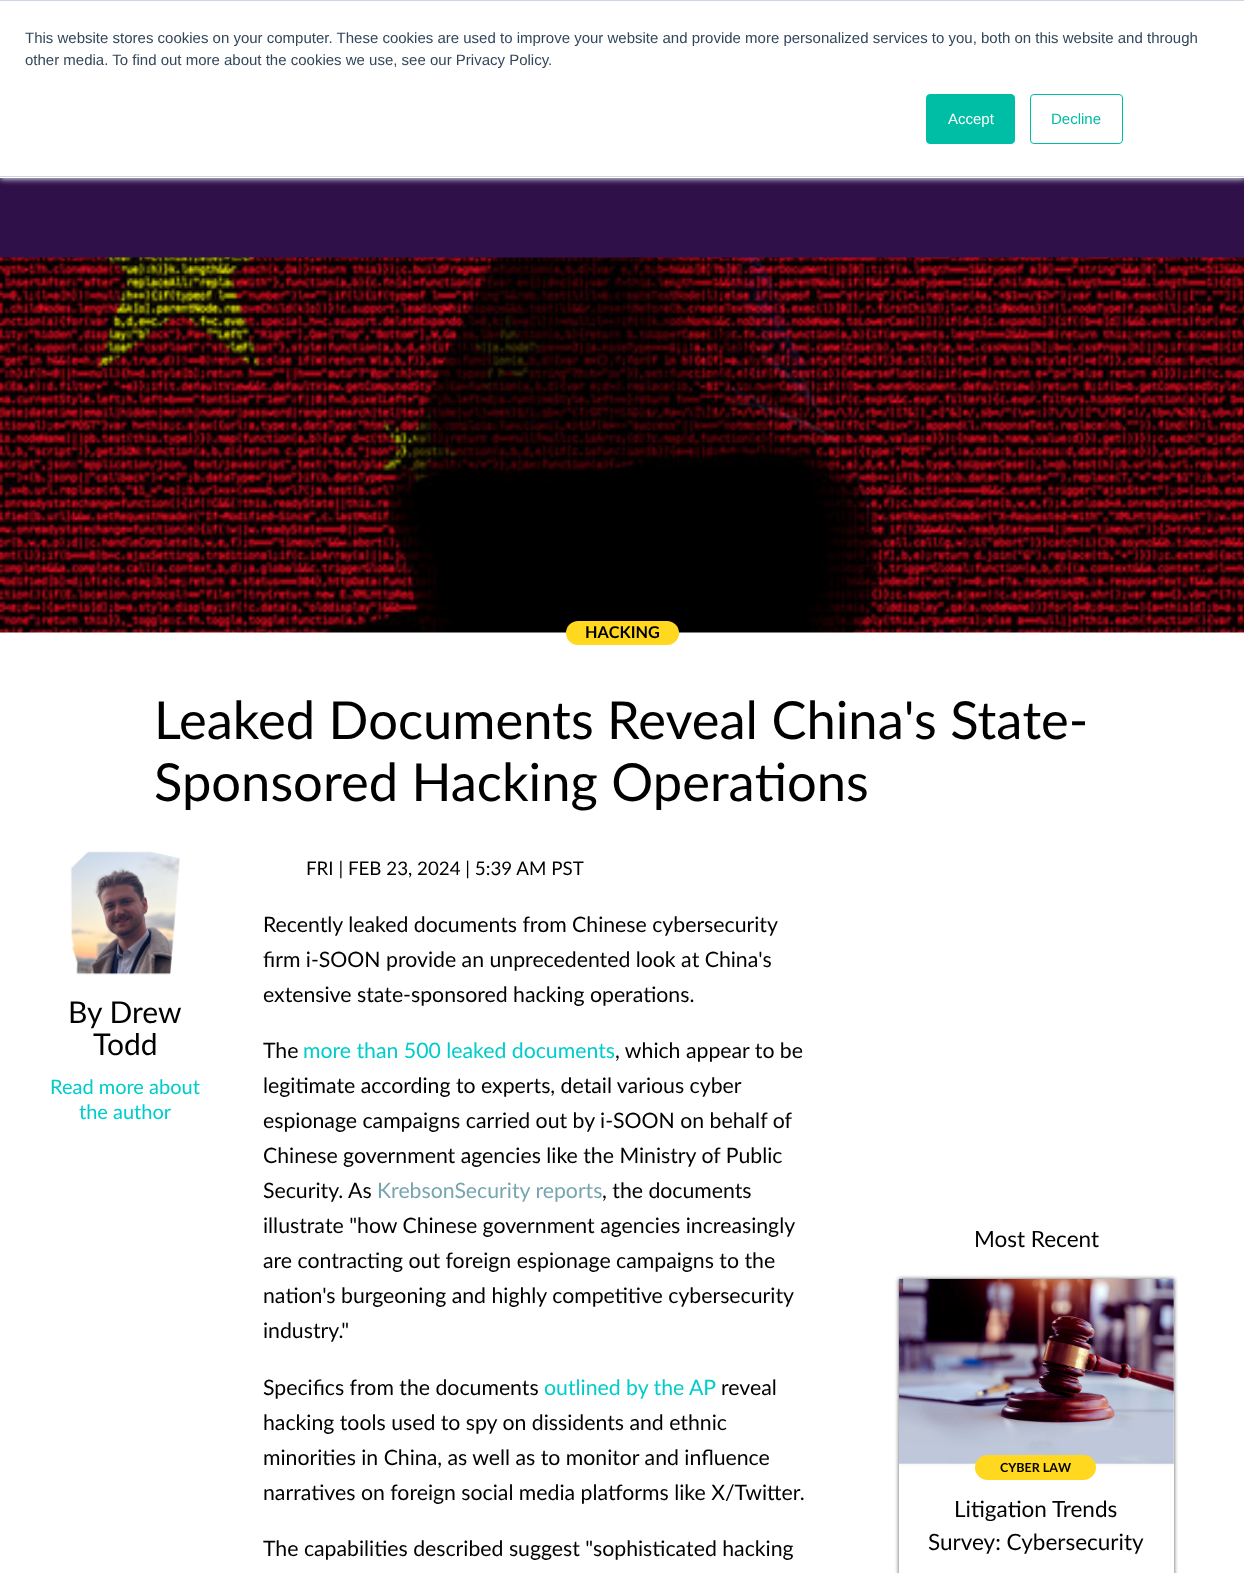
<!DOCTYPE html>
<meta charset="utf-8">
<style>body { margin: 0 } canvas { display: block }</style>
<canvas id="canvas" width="1244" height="1573"></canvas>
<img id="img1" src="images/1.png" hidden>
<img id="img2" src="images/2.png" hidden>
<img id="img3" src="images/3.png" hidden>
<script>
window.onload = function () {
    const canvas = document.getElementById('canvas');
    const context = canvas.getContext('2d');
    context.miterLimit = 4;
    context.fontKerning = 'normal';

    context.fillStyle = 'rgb(255, 255, 255)';
    context.fillRect(0, 0, 1244, 1573);
    context.fillStyle = 'rgb(47, 16, 73)';
    context.fillRect(0, 178, 1244, 80);
    context.fillStyle = 'rgb(234, 240, 246)';
    context.filter = 'blur(3px)';
    context.beginPath();
    context.rect(0, 1, 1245, 178);
    context.fill();
    context.filter = 'none';
    context.fillStyle = 'rgb(255, 255, 255)';
    context.fillRect(0, 1, 1244, 177);
    context.fillStyle = 'rgb(203, 214, 226)';
    context.fillRect(0, 0, 1244, 1);
    context.fillRect(0, 176, 1244, 1);
    context.fillStyle = 'rgb(0, 189, 165)';
    context.beginPath();
    context.roundRect(926.5, 94.5, 88, 49, 3.5);
    context.fill();
    context.strokeStyle = 'rgb(0, 189, 165)';
    context.stroke();
    context.beginPath();
    context.roundRect(1030.5, 94.5, 92, 49, 3.5);
    context.stroke();
    context.drawImage(document.getElementById('img1'), 0, 257, 1244, 376);
    context.fillStyle = 'rgb(255, 216, 31)';
    context.beginPath();
    context.roundRect(566, 621, 113, 24, 12);
    context.fill();
    context.drawImage(document.getElementById('img2'), 70, 851, 110, 124);
    context.fillStyle = 'rgba(0, 0, 0, 0.35)';
    context.filter = 'blur(2px)';
    context.beginPath();
    context.rect(899, 1279, 275, 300);
    context.fill();
    context.filter = 'none';
    context.filter = 'blur(2px)';
    context.beginPath();
    context.rect(899, 1279, 275, 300);
    context.fill();
    context.filter = 'none';
    context.fillStyle = 'rgb(255, 255, 255)';
    context.fillRect(899, 1466, 275, 107);
    context.fillStyle = 'rgb(250, 250, 250)';
    context.fillRect(899, 1279, 275, 187);
    context.drawImage(document.getElementById('img3'), 898, 1278, 276, 186);
    context.fillStyle = 'rgb(255, 216, 31)';
    context.beginPath();
    context.roundRect(975, 1455, 121, 25, 12.5);
    context.fill();
    context.font = '15px Liberation Sans';
    context.fillStyle = 'rgb(51, 71, 91)';
    context.fillText('This website stores cookies on your computer. These cookies are used to improve your website and provide more personalized services to you, both on this website and through', 25, 43);
    context.fillText('other media. To find out more about the cookies we use, see our Privacy Policy.', 25, 65);
    context.fillStyle = 'rgb(255, 255, 255)';
    context.fillText('Accept', 948, 124);
    context.fillStyle = 'rgb(0, 189, 165)';
    context.fillText('Decline', 1051, 124);
    context.font = 'bold 16.25px Lato';
    context.fillStyle = 'rgb(0, 0, 0)';
    context.fillText('HACKING', 585, 638);
    context.font = '52.5px Lato';
    context.fillText('Leaked Documents Reveal China\'s State-', 154, 739);
    context.fillText('Sponsored Hacking Operations', 154, 801);
    context.font = '30px Lato';
    context.fillText('By Drew', 68, 1023);
    context.fillText('Todd', 93, 1055);
    context.font = '20px Lato';
    context.fillStyle = 'rgb(0, 204, 204)';
    context.fillText('Read more about', 50, 1094);
    context.fillText('the author', 79, 1119);
    context.font = '18.75px Lato';
    context.fillStyle = 'rgb(0, 0, 0)';
    context.fillText('FRI | FEB 23, 2024 | 5:39 AM PST', 306, 875);
    context.font = '21.25px Lato';
    context.fillText('Recently leaked documents from Chinese cybersecurity', 263, 932);
    context.fillText('firm i-SOON provide an unprecedented look at China\'s', 263, 967);
    context.fillText('extensive state-sponsored hacking operations.', 263, 1002);
    context.fillText('The', 263, 1058);
    context.fillStyle = 'rgb(0, 204, 204)';
    context.fillText('more than 500 leaked documents', 303, 1058);
    context.fillStyle = 'rgb(0, 0, 0)';
    context.fillText(', which appear to be', 615, 1058);
    context.fillText('legitimate according to experts, detail various cyber', 263, 1093);
    context.fillText('espionage campaigns carried out by i-SOON on behalf of', 263, 1128);
    context.fillText('Chinese government agencies like the Ministry of Public', 263, 1163);
    context.fillText('Security. As', 263, 1198);
    context.fillStyle = 'rgb(118, 165, 175)';
    context.fillText('KrebsonSecurity reports', 377, 1198);
    context.fillStyle = 'rgb(0, 0, 0)';
    context.fillText(', the documents', 602, 1198);
    context.fillText('illustrate "how Chinese government agencies increasingly', 263, 1233);
    context.fillText('are contracting out foreign espionage campaigns to the', 263, 1268);
    context.fillText('nation\'s burgeoning and highly competitive cybersecurity', 263, 1303);
    context.fillText('industry."', 263, 1338);
    context.fillText('Specifics from the documents', 263, 1395);
    context.fillStyle = 'rgb(0, 204, 204)';
    context.fillText('outlined by the AP', 544, 1395);
    context.fillStyle = 'rgb(0, 0, 0)';
    context.fillText('reveal', 721, 1395);
    context.fillText('hacking tools used to spy on dissidents and ethnic', 263, 1430);
    context.fillText('minorities in China, as well as to monitor and influence', 263, 1465);
    context.fillText('narratives on foreign social media platforms like X/Twitter.', 263, 1500);
    context.fillText('The capabilities described suggest "sophisticated hacking', 263, 1556);
    context.font = '22.5px Lato';
    context.fillText('Most Recent', 974, 1247);
    context.font = 'bold 12.5px Lato';
    context.fillText('CYBER LAW', 1000, 1472);
    context.font = '22.5px Lato';
    context.fillText('Litigation Trends', 954, 1517);
    context.fillText('Survey: Cybersecurity', 928, 1550);
};
</script>
